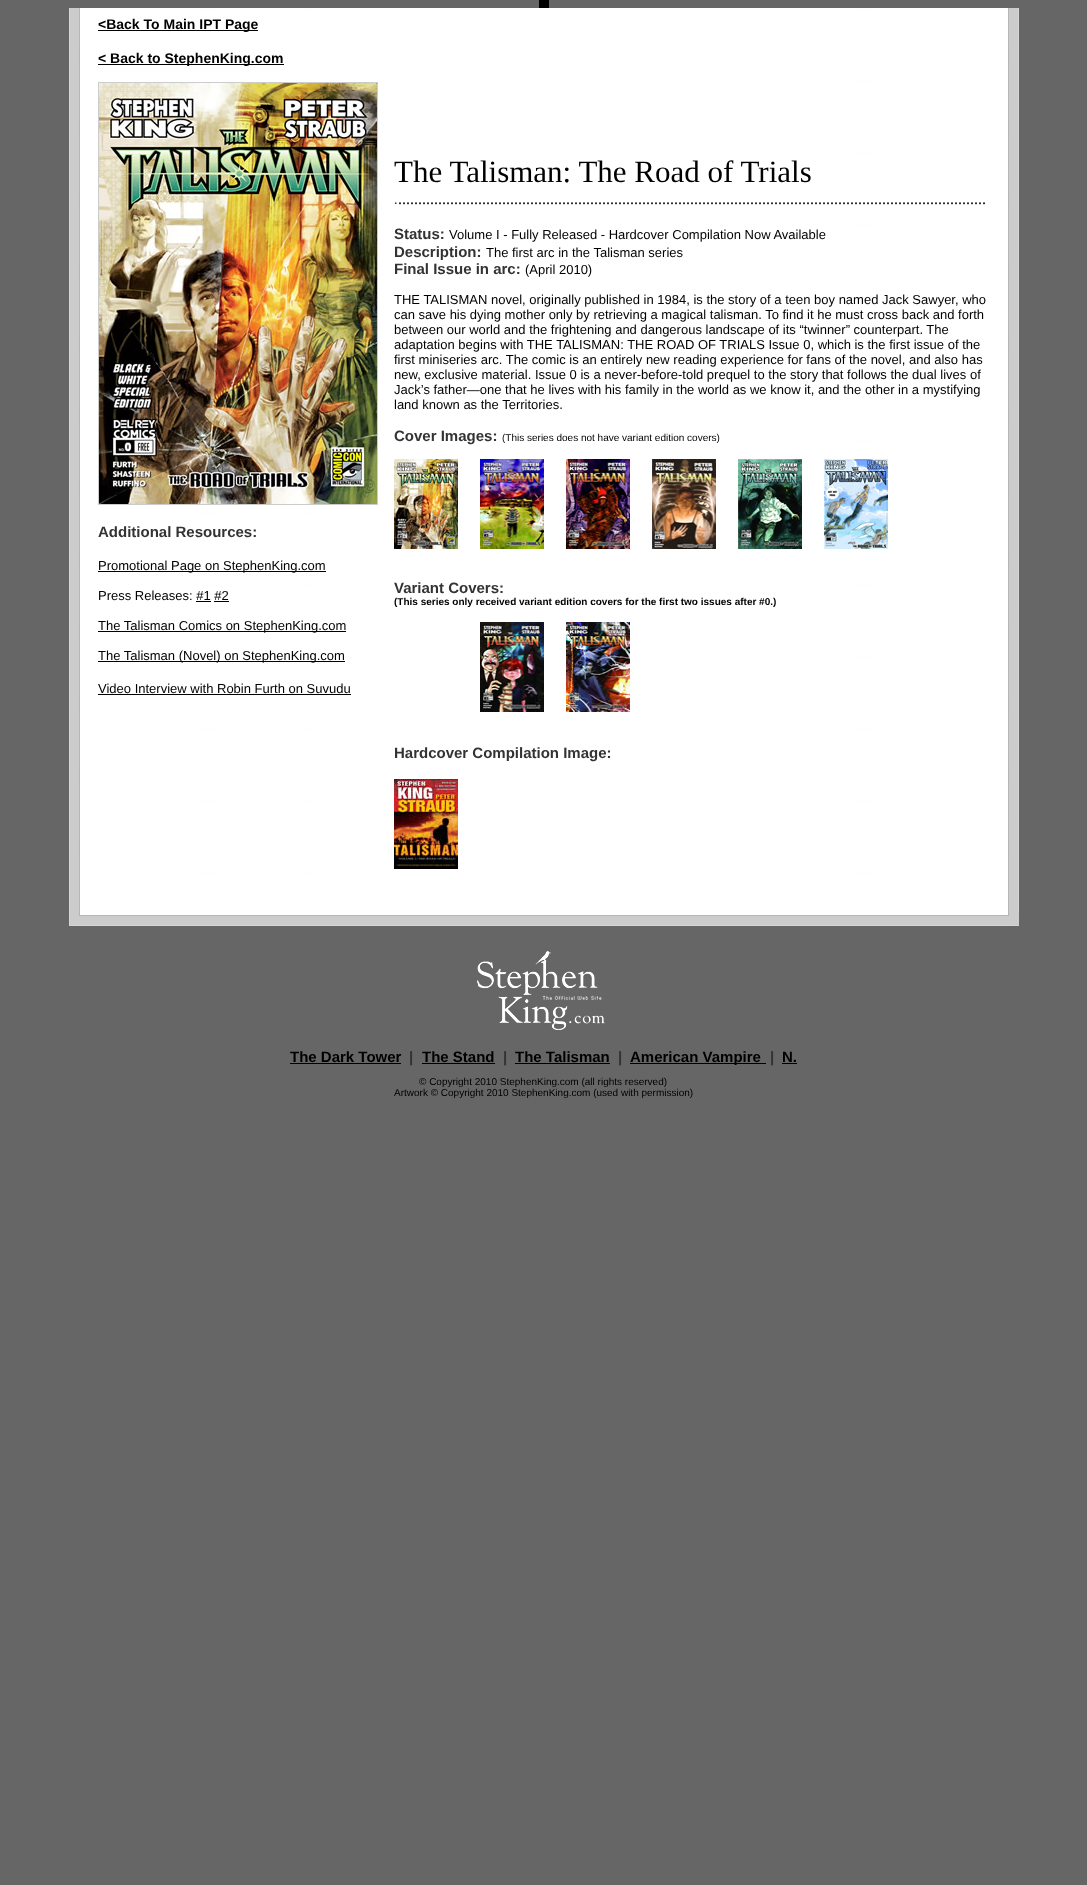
<!DOCTYPE html>
<meta charset="utf-8">
<style>body { margin: 0 } canvas { display: block }</style>
<canvas id="canvas" width="1087" height="1885"></canvas>
<img id="img1" src="images/1.png" hidden>
<img id="img2" src="images/2.png" hidden>
<img id="img3" src="images/3.png" hidden>
<img id="img4" src="images/4.png" hidden>
<img id="img5" src="images/5.png" hidden>
<img id="img6" src="images/6.png" hidden>
<img id="img7" src="images/7.png" hidden>
<img id="img8" src="images/8.png" hidden>
<img id="img9" src="images/9.png" hidden>
<img id="img10" src="images/10.png" hidden>
<img id="img11" src="images/11.png" hidden>
<img id="img12" src="images/12.png" hidden>
<img id="img13" src="images/13.png" hidden>
<script>
window.onload = function () {
    const canvas = document.getElementById('canvas');
    const context = canvas.getContext('2d');
    context.miterLimit = 4;
    context.fontKerning = 'normal';

    context.fillStyle = 'rgb(102, 102, 102)';
    context.fillRect(0, 0, 1087, 1885);
    context.fillStyle = 'rgb(1, 1, 1)';
    context.fillRect(539, 0, 10, 8);
    context.drawImage(document.getElementById('img1'), 69, 8, 950, 905);
    context.fillStyle = 'rgb(0, 0, 0)';
    context.fillRect(98, 30, 160, 1);
    context.fillRect(98, 64, 186, 1);
    context.strokeStyle = 'rgb(204, 204, 204)';
    context.strokeRect(98.5, 82.5, 279, 422);
    context.drawImage(document.getElementById('img2'), 99, 83, 278, 421);
    context.fillRect(98, 571, 228, 1);
    context.fillRect(196, 601, 15, 1);
    context.fillRect(214, 601, 15, 1);
    context.fillRect(98, 631, 248, 1);
    context.fillRect(98, 661, 247, 1);
    context.fillRect(98, 694, 253, 1);
    context.drawImage(document.getElementById('img3'), 394, 459, 64, 90);
    context.drawImage(document.getElementById('img4'), 480, 459, 64, 90);
    context.drawImage(document.getElementById('img5'), 566, 459, 64, 90);
    context.drawImage(document.getElementById('img6'), 652, 459, 64, 90);
    context.drawImage(document.getElementById('img7'), 738, 459, 64, 90);
    context.drawImage(document.getElementById('img8'), 824, 459, 64, 90);
    context.drawImage(document.getElementById('img9'), 480, 622, 64, 90);
    context.drawImage(document.getElementById('img10'), 566, 622, 64, 90);
    context.drawImage(document.getElementById('img11'), 394, 779, 64, 90);
    context.drawImage(document.getElementById('img12'), 69, 913, 950, 13);
    context.drawImage(document.getElementById('img13'), 477, 951, 128, 79);
    context.fillRect(290, 1063, 111, 1);
    context.fillRect(422, 1063, 73, 1);
    context.fillRect(515, 1063, 95, 1);
    context.fillRect(630, 1063, 136, 1);
    context.fillRect(782, 1063, 15, 1);
    context.font = 'bold 14px Liberation Sans';
    context.fillText('<Back To Main IPT Page', 98, 29);
    context.fillText('< Back to StephenKing.com', 98, 63);
    context.font = 'bold 15px Liberation Sans';
    context.fillStyle = 'rgb(51, 51, 51)';
    context.fillText('Additional Resources:', 98, 537);
    context.font = '13px Liberation Sans';
    context.fillStyle = 'rgb(0, 0, 0)';
    context.fillText('Promotional Page on StephenKing.com', 98, 570);
    context.fillText('Press Releases: #1 #2', 98, 600);
    context.fillText('The Talisman Comics on StephenKing.com', 98, 630);
    context.fillText('The Talisman (Novel) on StephenKing.com', 98, 660);
    context.fillText('Video Interview with Robin Furth on Suvudu', 98, 693);
    context.font = '31px Liberation Serif';
    context.fillText('The Talisman: The Road of Trials', 394, 182);
    context.font = '13px Liberation Sans';
    context.fillText('.', 394, 204);
    context.font = '16px Liberation Serif';
    context.fillText('...................................................................................................................................................', 398, 204);
    context.font = 'bold 15px Liberation Sans';
    context.fillStyle = 'rgb(51, 51, 51)';
    context.fillText('Status:', 394, 239);
    context.font = '13px Liberation Sans';
    context.fillStyle = 'rgb(0, 0, 0)';
    context.fillText('Volume I - Fully Released - Hardcover Compilation Now Available', 449, 239);
    context.font = 'bold 15px Liberation Sans';
    context.fillStyle = 'rgb(51, 51, 51)';
    context.fillText('Description:', 394, 257);
    context.font = '13px Liberation Sans';
    context.fillStyle = 'rgb(0, 0, 0)';
    context.fillText('The first arc in the Talisman series', 486, 257);
    context.font = 'bold 15px Liberation Sans';
    context.fillStyle = 'rgb(51, 51, 51)';
    context.fillText('Final Issue in arc:', 394, 274);
    context.font = '13px Liberation Sans';
    context.fillStyle = 'rgb(0, 0, 0)';
    context.fillText('(April 2010)', 525, 274);
    context.fillText('THE TALISMAN novel, originally published in 1984, is the story of a teen boy named Jack Sawyer, who', 394, 304);
    context.fillText('can save his dying mother only by retrieving a magical talisman. To find it he must cross back and forth', 394, 319);
    context.fillText('between our world and the frightening and dangerous landscape of its “twinner” counterpart. The', 394, 334);
    context.fillText('adaptation begins with THE TALISMAN: THE ROAD OF TRIALS Issue 0, which is the first issue of the', 394, 349);
    context.fillText('first miniseries arc. The comic is an entirely new reading experience for fans of the novel, and also has', 394, 364);
    context.fillText('new, exclusive material. Issue 0 is a never-before-told prequel to the story that follows the dual lives of', 394, 379);
    context.fillText('Jack’s father—one that he lives with his family in the world as we know it, and the other in a mystifying', 394, 394);
    context.fillText('land known as the Territories.', 394, 409);
    context.font = 'bold 15px Liberation Sans';
    context.fillStyle = 'rgb(51, 51, 51)';
    context.fillText('Cover Images:', 394, 441);
    context.font = '10px Liberation Sans';
    context.fillStyle = 'rgb(0, 0, 0)';
    context.fillText('(This series does not have variant edition covers)', 502, 441);
    context.font = 'bold 15px Liberation Sans';
    context.fillStyle = 'rgb(51, 51, 51)';
    context.fillText('Variant Covers:', 394, 593);
    context.font = 'bold 10px Liberation Sans';
    context.fillStyle = 'rgb(0, 0, 0)';
    context.fillText('(This series only received variant edition covers for the first two issues after #0.)', 394, 605);
    context.font = 'bold 15px Liberation Sans';
    context.fillStyle = 'rgb(51, 51, 51)';
    context.fillText('Hardcover Compilation Image:', 394, 758);
    context.fillStyle = 'rgb(0, 0, 0)';
    context.fillText('The Dark Tower', 290, 1062);
    context.fillStyle = 'rgb(51, 51, 51)';
    context.fillText('|', 409, 1062);
    context.fillStyle = 'rgb(0, 0, 0)';
    context.fillText('The Stand', 422, 1062);
    context.fillStyle = 'rgb(51, 51, 51)';
    context.fillText('|', 503, 1062);
    context.fillStyle = 'rgb(0, 0, 0)';
    context.fillText('The Talisman', 515, 1062);
    context.fillStyle = 'rgb(51, 51, 51)';
    context.fillText('|', 618, 1062);
    context.fillStyle = 'rgb(0, 0, 0)';
    context.fillText('American Vampire', 630, 1062);
    context.fillStyle = 'rgb(51, 51, 51)';
    context.fillText('|', 770, 1062);
    context.fillStyle = 'rgb(0, 0, 0)';
    context.fillText('N.', 782, 1062);
    context.font = '10px Liberation Sans';
    context.fillText('© Copyright 2010 StephenKing.com (all rights reserved)', 419, 1085);
    context.fillText('Artwork © Copyright 2010 StephenKing.com (used with permission)', 394, 1096);
};
</script>
